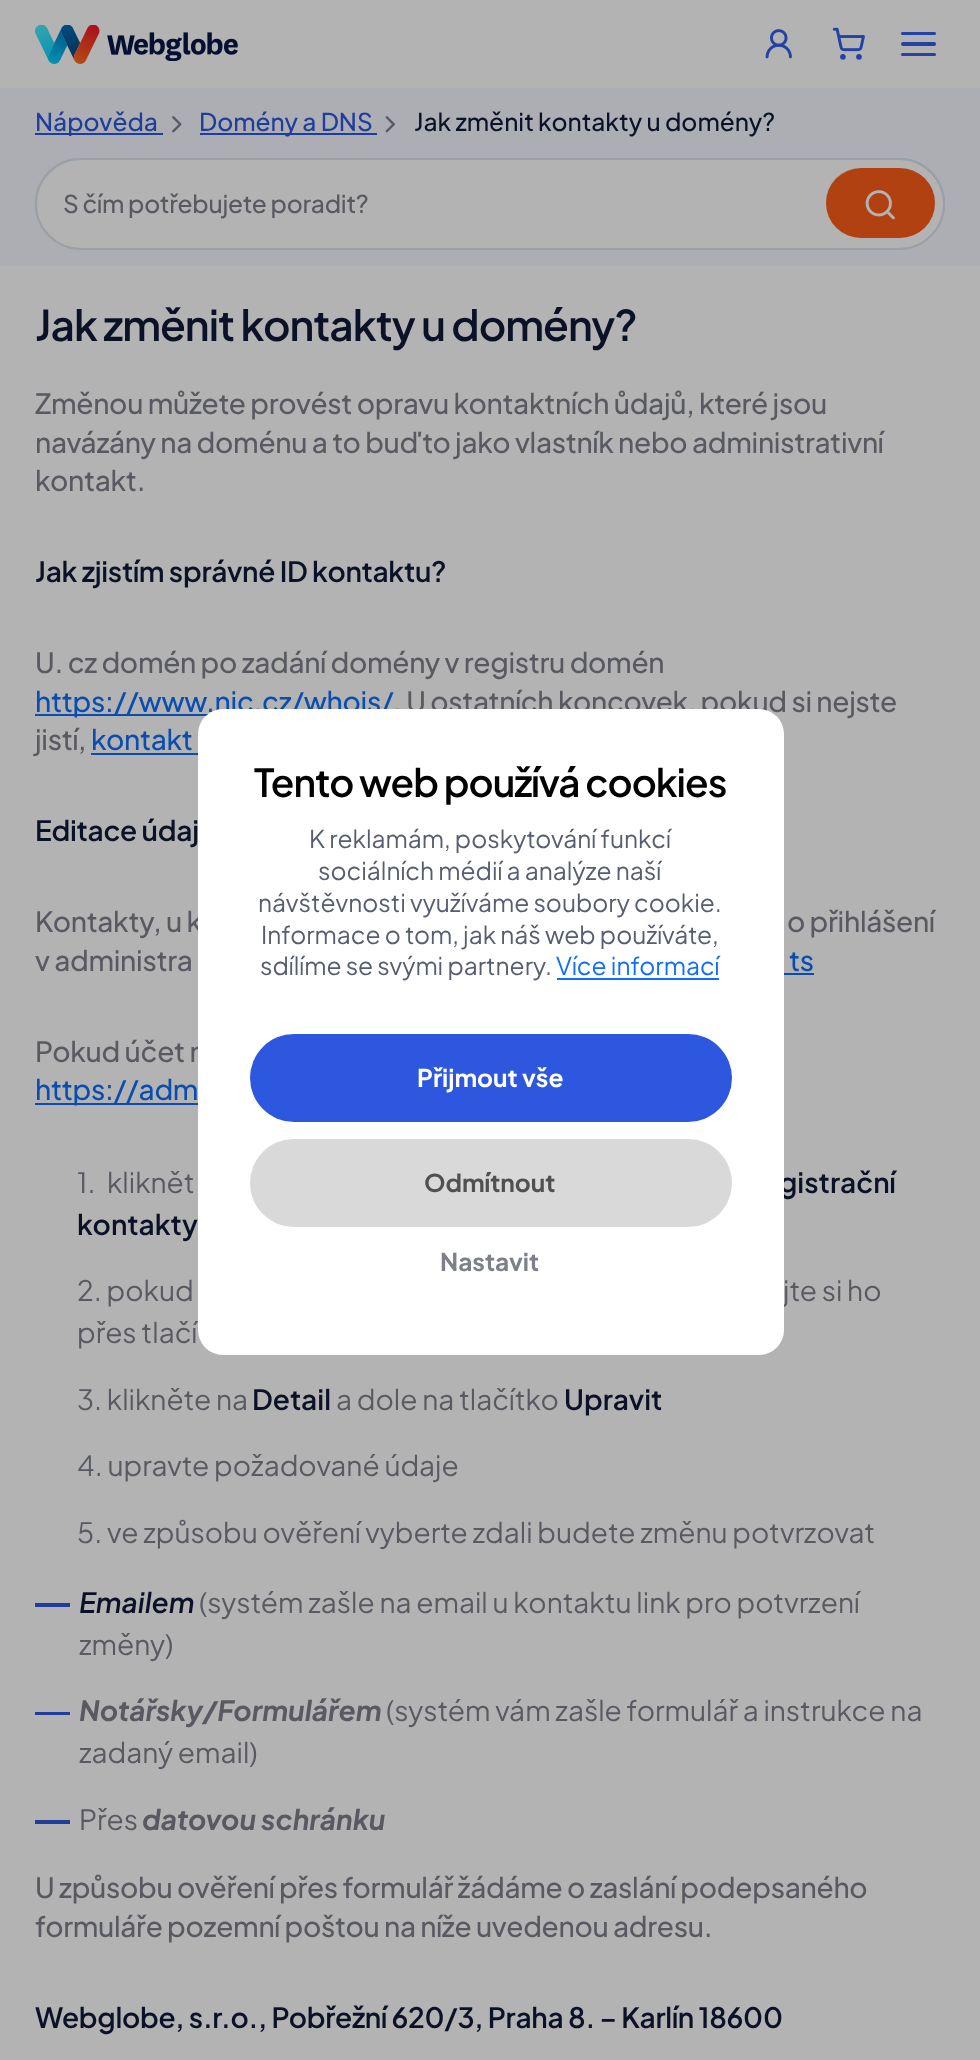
<!DOCTYPE html>
<meta charset="utf-8">
<style>body { margin: 0 } canvas { display: block }</style>
<canvas id="canvas" width="980" height="2060"></canvas>
<img id="img1" src="images/1.png" hidden>
<img id="img2" src="images/2.png" hidden>
<img id="img3" src="images/3.png" hidden>
<img id="img4" src="images/4.png" hidden>
<img id="img5" src="images/5.png" hidden>
<img id="img6" src="images/6.png" hidden>
<script>
window.onload = function () {
    const canvas = document.getElementById('canvas');
    const context = canvas.getContext('2d');
    context.miterLimit = 4;
    context.fontKerning = 'normal';

    context.fillStyle = 'rgb(179, 179, 179)';
    context.fillRect(0, 0, 980, 2060);
    context.drawImage(document.getElementById('img1'), 35, 25, 203, 39);
    context.drawImage(document.getElementById('img2'), 765, 29, 27, 30);
    context.drawImage(document.getElementById('img3'), 832, 27, 33, 33);
    context.fillStyle = 'rgb(34, 66, 166)';
    context.beginPath();
    context.roundRect(901, 32, 35, 3, 1.5);
    context.fill();
    context.beginPath();
    context.roundRect(901, 42, 35, 4, 2);
    context.fill();
    context.beginPath();
    context.roundRect(901, 53, 35, 3, 1.5);
    context.fill();
    context.fillStyle = 'rgb(172, 174, 179)';
    context.fillRect(0, 88, 980, 178);
    context.fillStyle = 'rgb(31, 61, 155)';
    context.fillRect(35, 133, 128, 2);
    context.drawImage(document.getElementById('img4'), 172, 116, 10, 17);
    context.fillRect(200, 133, 177, 2);
    context.drawImage(document.getElementById('img5'), 385, 116, 10, 17);
    context.beginPath();
    context.roundRect(36, 159, 908, 89, 44.5);
    context.strokeStyle = 'rgb(155, 160, 166)';
    context.lineWidth = 2;
    context.stroke();
    context.fillStyle = 'rgb(179, 179, 179)';
    context.beginPath();
    context.roundRect(36, 159, 908, 90, 45);
    context.fill();
    context.stroke();
    context.fillStyle = 'rgb(177, 65, 17)';
    context.beginPath();
    context.roundRect(826, 168, 109, 70, 35);
    context.fill();
    context.drawImage(document.getElementById('img6'), 865, 190, 30, 30);
    context.fillStyle = 'rgb(9, 77, 177)';
    context.fillRect(35, 714, 173, 2);
    context.fillRect(91, 753, 107, 2);
    context.fillRect(784, 973, 30, 2);
    context.fillRect(35, 1103, 163, 2);
    context.fillStyle = 'rgb(31, 61, 155)';
    context.fillRect(35, 1603, 35, 4);
    context.fillRect(35, 1712, 35, 3);
    context.fillRect(35, 1820, 35, 4);
    context.font = '500 24.5px Plus Jakarta Sans';
    context.fillText('Nápověda', 35, 131);
    context.fillText('Domény a DNS', 199, 131);
    context.fillStyle = 'rgb(11, 18, 39)';
    context.fillText('Jak změnit kontakty u domény?', 414, 131);
    context.letterSpacing = '-0.25px';
    context.fillStyle = 'rgb(88, 89, 97)';
    context.fillText('S čím potřebujete poradit?', 63, 213);
    context.letterSpacing = '-1px';
    context.font = '600 42.25px Plus Jakarta Sans';
    context.fillStyle = 'rgb(11, 18, 39)';
    context.fillText('Jak změnit kontakty u domény?', 35, 341);
    context.letterSpacing = '-0.28px';
    context.font = '500 28px Plus Jakarta Sans';
    context.fillStyle = 'rgb(88, 89, 97)';
    context.fillText('Změnou můžete provést opravu kontaktních ůdajů, které jsou', 35, 414);
    context.fillText('navázány na doménu a to buďto jako vlastník nebo administrativní', 35, 453);
    context.fillText('kontakt.', 35, 491);
    context.font = '600 28px Plus Jakarta Sans';
    context.fillStyle = 'rgb(11, 18, 39)';
    context.fillText('Jak zjistím správné ID kontaktu?', 35, 582);
    context.font = '500 28px Plus Jakarta Sans';
    context.fillStyle = 'rgb(88, 89, 97)';
    context.fillText('U. cz domén po zadání domény v registru domén', 35, 673);
    context.fillStyle = 'rgb(9, 77, 177)';
    context.fillText('https://www.nic.cz/whois/', 35, 712);
    context.fillStyle = 'rgb(88, 89, 97)';
    context.fillText('. U ostatních koncovek, pokud si nejste', 393, 712);
    context.fillText('jistí,', 35, 750);
    context.fillStyle = 'rgb(9, 77, 177)';
    context.fillText('kontakt', 91, 750);
    context.font = '600 28px Plus Jakarta Sans';
    context.fillStyle = 'rgb(11, 18, 39)';
    context.fillText('Editace údaj', 35, 841);
    context.font = '500 28px Plus Jakarta Sans';
    context.fillStyle = 'rgb(88, 89, 97)';
    context.fillText('Kontakty, u k', 35, 932);
    context.fillText('o přihlášení', 787, 932);
    context.fillText('v administra', 35, 971);
    context.fillStyle = 'rgb(9, 77, 177)';
    context.fillText('ts', 789, 971);
    context.fillStyle = 'rgb(88, 89, 97)';
    context.fillText('Pokud účet n', 35, 1062);
    context.fillStyle = 'rgb(9, 77, 177)';
    context.fillText('https://adm', 35, 1100);
    context.letterSpacing = '0px';
    context.font = '28px Plus Jakarta Sans';
    context.fillStyle = 'rgb(88, 89, 97)';
    context.fillText('1.', 77, 1193);
    context.fillText('kliknět', 107, 1193);
    context.font = '600 28px Plus Jakarta Sans';
    context.fillStyle = 'rgb(11, 18, 39)';
    context.fillText('gistrační', 779, 1193);
    context.fillText('kontakty', 77, 1235);
    context.font = '28px Plus Jakarta Sans';
    context.fillStyle = 'rgb(88, 89, 97)';
    context.fillText('2. pokud', 77, 1301);
    context.fillText('jte si ho', 783, 1301);
    context.fillText('přes tlačí', 77, 1343);
    context.fillText('3. klikněte na', 77, 1410);
    context.font = '600 28px Plus Jakarta Sans';
    context.fillStyle = 'rgb(11, 18, 39)';
    context.fillText('Detail', 252, 1410);
    context.font = '28px Plus Jakarta Sans';
    context.fillStyle = 'rgb(88, 89, 97)';
    context.fillText('a dole na tlačítko', 336, 1410);
    context.font = '600 28px Plus Jakarta Sans';
    context.fillStyle = 'rgb(11, 18, 39)';
    context.fillText('Upravit', 564, 1410);
    context.font = '28px Plus Jakarta Sans';
    context.fillStyle = 'rgb(88, 89, 97)';
    context.fillText('4. upravte požadované údaje', 77, 1476);
    context.fillText('5. ve způsobu ověření vyberte zdali budete změnu potvrzovat', 77, 1543);
    context.font = 'italic 600 28px Plus Jakarta Sans';
    context.fillStyle = 'rgb(11, 18, 39)';
    context.fillText('Emailem', 79, 1613);
    context.font = '28px Plus Jakarta Sans';
    context.fillStyle = 'rgb(88, 89, 97)';
    context.fillText('(systém zašle na email u kontaktu link pro potvrzení', 199, 1613);
    context.fillText('změny)', 79, 1655);
    context.font = 'italic bold 28px Plus Jakarta Sans';
    context.fillText('Notářsky/Formulářem', 79, 1721);
    context.font = '28px Plus Jakarta Sans';
    context.fillText('(systém vám zašle formulář a instrukce na', 386, 1721);
    context.fillText('zadaný email)', 79, 1763);
    context.fillText('Přes', 79, 1830);
    context.font = 'italic bold 28px Plus Jakarta Sans';
    context.fillText('datovou schránku', 142, 1830);
    context.letterSpacing = '-0.28px';
    context.font = '500 28px Plus Jakarta Sans';
    context.fillText('U způsobu ověření přes formulář žádáme o zaslání podepsaného', 35, 1898);
    context.fillText('formuláře pozemní poštou na níže uvedenou adresu.', 35, 1937);
    context.font = '600 28px Plus Jakarta Sans';
    context.fillStyle = 'rgb(11, 18, 39)';
    context.fillText('Webglobe, s.r.o., Pobřežní 620/3, Praha 8. – Karlín 18600', 35, 2028);
    context.fillStyle = 'rgb(255, 255, 255)';
    context.beginPath();
    context.roundRect(198, 709, 586, 646, 25);
    context.fill();
    context.letterSpacing = '-1px';
    context.font = '600 38.5px Plus Jakarta Sans';
    context.fillStyle = 'rgb(0, 0, 0)';
    context.fillText('Tento web používá cookies', 254, 797);
    context.letterSpacing = '0px';
    context.font = '24.5px Plus Jakarta Sans';
    context.fillStyle = 'rgb(86, 92, 113)';
    context.fillText('K reklamám, poskytování funkcí', 309, 848);
    context.fillText('sociálních médií a analýze naší', 318, 880);
    context.fillText('návštěvnosti využíváme soubory cookie.', 258, 912);
    context.fillText('Informace o tom, jak náš web používáte,', 261, 944);
    context.fillText('sdílíme se svými partnery.', 260, 975);
    context.fillStyle = 'rgb(13, 110, 253)';
    context.fillText('Více informací', 556, 975);
    context.fillRect(557, 978, 162, 2);
    context.fillStyle = 'rgb(44, 87, 222)';
    context.beginPath();
    context.roundRect(250, 1034, 482, 88, 44);
    context.fill();
    context.font = 'bold 24.5px Plus Jakarta Sans';
    context.fillStyle = 'rgb(255, 255, 255)';
    context.fillText('Přijmout vše', 417, 1087);
    context.fillStyle = 'rgb(217, 217, 217)';
    context.beginPath();
    context.roundRect(250, 1139, 482, 88, 44);
    context.fill();
    context.fillStyle = 'rgb(80, 80, 80)';
    context.fillText('Odmítnout', 424, 1192);
    context.fillStyle = 'rgb(125, 127, 138)';
    context.fillText('Nastavit', 440, 1271);
};
</script>
